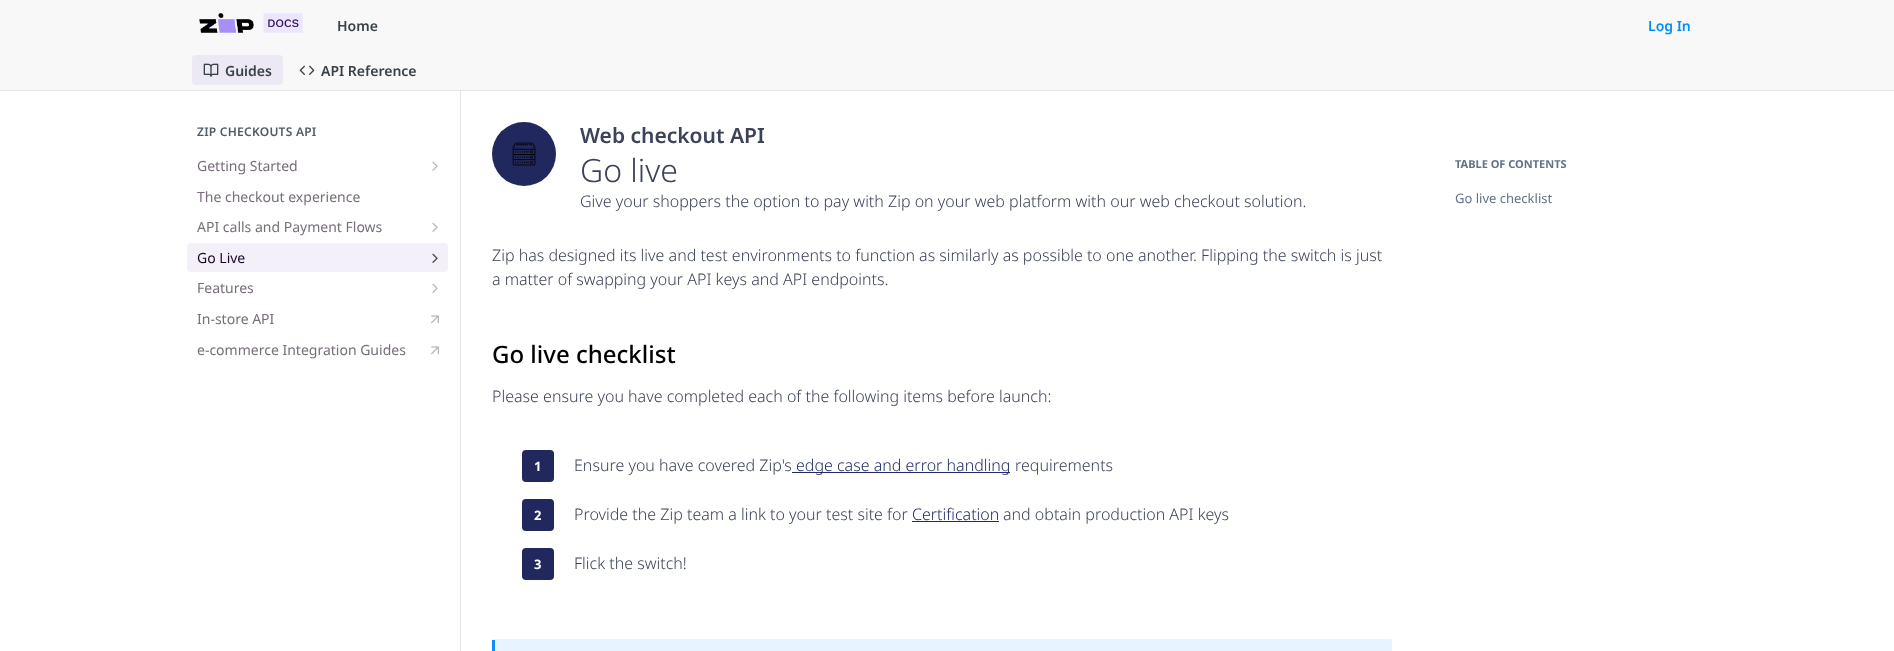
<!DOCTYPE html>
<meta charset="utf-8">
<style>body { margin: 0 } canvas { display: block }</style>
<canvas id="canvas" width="1894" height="651"></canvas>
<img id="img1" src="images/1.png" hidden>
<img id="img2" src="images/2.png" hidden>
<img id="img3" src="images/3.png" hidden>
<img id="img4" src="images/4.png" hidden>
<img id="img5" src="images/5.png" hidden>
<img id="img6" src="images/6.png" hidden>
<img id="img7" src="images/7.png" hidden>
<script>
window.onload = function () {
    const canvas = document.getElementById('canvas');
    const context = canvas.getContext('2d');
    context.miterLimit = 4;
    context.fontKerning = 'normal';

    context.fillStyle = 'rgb(255, 255, 255)';
    context.fillRect(0, 0, 1894, 651);
    context.fillStyle = 'rgb(230, 230, 230)';
    context.fillRect(0, 90, 1894, 1);
    context.fillStyle = 'rgb(248, 248, 249)';
    context.fillRect(0, 0, 1894, 90);
    context.drawImage(document.getElementById('img1'), 199, 13, 104, 20);
    context.fillStyle = 'rgb(236, 233, 244)';
    context.beginPath();
    context.roundRect(192, 55, 91, 30, 4);
    context.fill();
    context.drawImage(document.getElementById('img2'), 203, 63, 16, 14);
    context.drawImage(document.getElementById('img3'), 299, 65, 16, 10);
    context.fillStyle = 'rgb(230, 230, 230)';
    context.fillRect(460, 90, 1, 561);
    context.fillStyle = 'rgb(207, 207, 207)';
    context.fillRect(460, 90, 1, 1);
    context.drawImage(document.getElementById('img4'), 432, 161, 6, 10);
    context.drawImage(document.getElementById('img4'), 432, 222, 6, 10);
    context.fillStyle = 'rgb(243, 240, 250)';
    context.beginPath();
    context.roundRect(187, 243, 261, 29, 4);
    context.fill();
    context.drawImage(document.getElementById('img5'), 432, 253, 6, 10);
    context.drawImage(document.getElementById('img4'), 432, 283, 6, 10);
    context.drawImage(document.getElementById('img6'), 431, 315, 8, 9);
    context.drawImage(document.getElementById('img6'), 431, 346, 8, 9);
    context.fillStyle = 'rgb(33, 40, 94)';
    context.beginPath();
    context.arc(524, 154, 32, 0, 2 * Math.PI);
    context.fill();
    context.drawImage(document.getElementById('img7'), 512, 142, 24, 24);
    context.beginPath();
    context.roundRect(522, 450, 32, 32, 4);
    context.fill();
    context.fillStyle = 'rgb(33, 45, 99)';
    context.fillRect(792, 472, 218, 1);
    context.fillStyle = 'rgb(33, 40, 94)';
    context.beginPath();
    context.roundRect(522, 499, 32, 32, 4);
    context.fill();
    context.fillStyle = 'rgb(33, 45, 99)';
    context.fillRect(912, 521, 87, 1);
    context.fillStyle = 'rgb(33, 40, 94)';
    context.beginPath();
    context.roundRect(522, 548, 32, 32, 4);
    context.fill();
    context.fillStyle = 'rgb(231, 244, 255)';
    context.beginPath();
    context.roundRect(492, 639, 900, 12, [2, 2, 0, 0]);
    context.fill();
    context.fillStyle = 'rgb(17, 140, 253)';
    context.fillRect(492, 640, 3, 11);
    context.font = '600 14px Noto Sans';
    context.fillStyle = 'rgb(56, 66, 72)';
    context.fillText('Home', 337, 31);
    context.fillStyle = 'rgb(1, 142, 245)';
    context.fillText('Log In', 1648, 31);
    context.fillStyle = 'rgb(56, 66, 72)';
    context.fillText('Guides', 225, 76);
    context.fillText('API Reference', 321, 76);
    context.letterSpacing = '0.25px';
    context.font = '600 12px Noto Sans';
    context.fillStyle = 'rgb(79, 90, 102)';
    context.fillText('ZIP CHECKOUTS API', 197, 136);
    context.letterSpacing = '0px';
    context.font = '14px Noto Sans';
    context.fillStyle = 'rgb(120, 110, 122)';
    context.fillText('Getting Started', 197, 171);
    context.fillText('The checkout experience', 197, 202);
    context.fillText('API calls and Payment Flows', 197, 232);
    context.fillStyle = 'rgb(26, 8, 38)';
    context.fillText('Go Live', 197, 263);
    context.fillStyle = 'rgb(120, 110, 122)';
    context.fillText('Features', 197, 293);
    context.fillText('In-store API', 197, 324);
    context.fillText('e-commerce Integration Guides', 197, 355);
    context.font = '600 21px Noto Sans';
    context.fillStyle = 'rgb(60, 66, 87)';
    context.fillText('Web checkout API', 580, 143);
    context.font = '300 32px Noto Sans';
    context.fillText('Go live', 580, 182);
    context.font = '300 16px Noto Sans';
    context.fillText('Give your shoppers the option to pay with Zip on your web platform with our web checkout solution.', 580, 207);
    context.fillText('Zip has designed its live and test environments to function as similarly as possible to one another. Flipping the switch is just', 492, 261);
    context.fillText('a matter of swapping your API keys and API endpoints.', 492, 285);
    context.font = '500 24px Noto Sans';
    context.fillStyle = 'rgb(0, 0, 0)';
    context.fillText('Go live checklist', 492, 363);
    context.font = '300 16px Noto Sans';
    context.fillStyle = 'rgb(60, 66, 87)';
    context.fillText('Please ensure you have completed each of the following items before launch:', 492, 402);
    context.font = 'bold 13px Noto Sans';
    context.fillStyle = 'rgb(255, 255, 255)';
    context.fillText('1', 534, 471);
    context.font = '300 16px Noto Sans';
    context.fillStyle = 'rgb(60, 66, 87)';
    context.fillText('Ensure you have covered Zip\'s', 574, 471);
    context.fillStyle = 'rgb(33, 45, 99)';
    context.fillText('edge case and error handling', 796, 471);
    context.fillStyle = 'rgb(60, 66, 87)';
    context.fillText('requirements', 1015, 471);
    context.font = 'bold 13px Noto Sans';
    context.fillStyle = 'rgb(255, 255, 255)';
    context.fillText('2', 534, 520);
    context.font = '300 16px Noto Sans';
    context.fillStyle = 'rgb(60, 66, 87)';
    context.fillText('Provide the Zip team a link to your test site for', 574, 520);
    context.fillStyle = 'rgb(33, 45, 99)';
    context.fillText('Certification', 912, 520);
    context.fillStyle = 'rgb(60, 66, 87)';
    context.fillText('and obtain production API keys', 1003, 520);
    context.font = 'bold 13px Noto Sans';
    context.fillStyle = 'rgb(255, 255, 255)';
    context.fillText('3', 534, 569);
    context.font = '300 16px Noto Sans';
    context.fillStyle = 'rgb(60, 66, 87)';
    context.fillText('Flick the switch!', 574, 569);
    context.font = 'bold 11px Noto Sans';
    context.fillStyle = 'rgb(99, 114, 136)';
    context.fillText('TABLE OF CONTENTS', 1455, 168);
    context.font = '13px Noto Sans';
    context.fillText('Go live checklist', 1455, 203);
};
</script>
